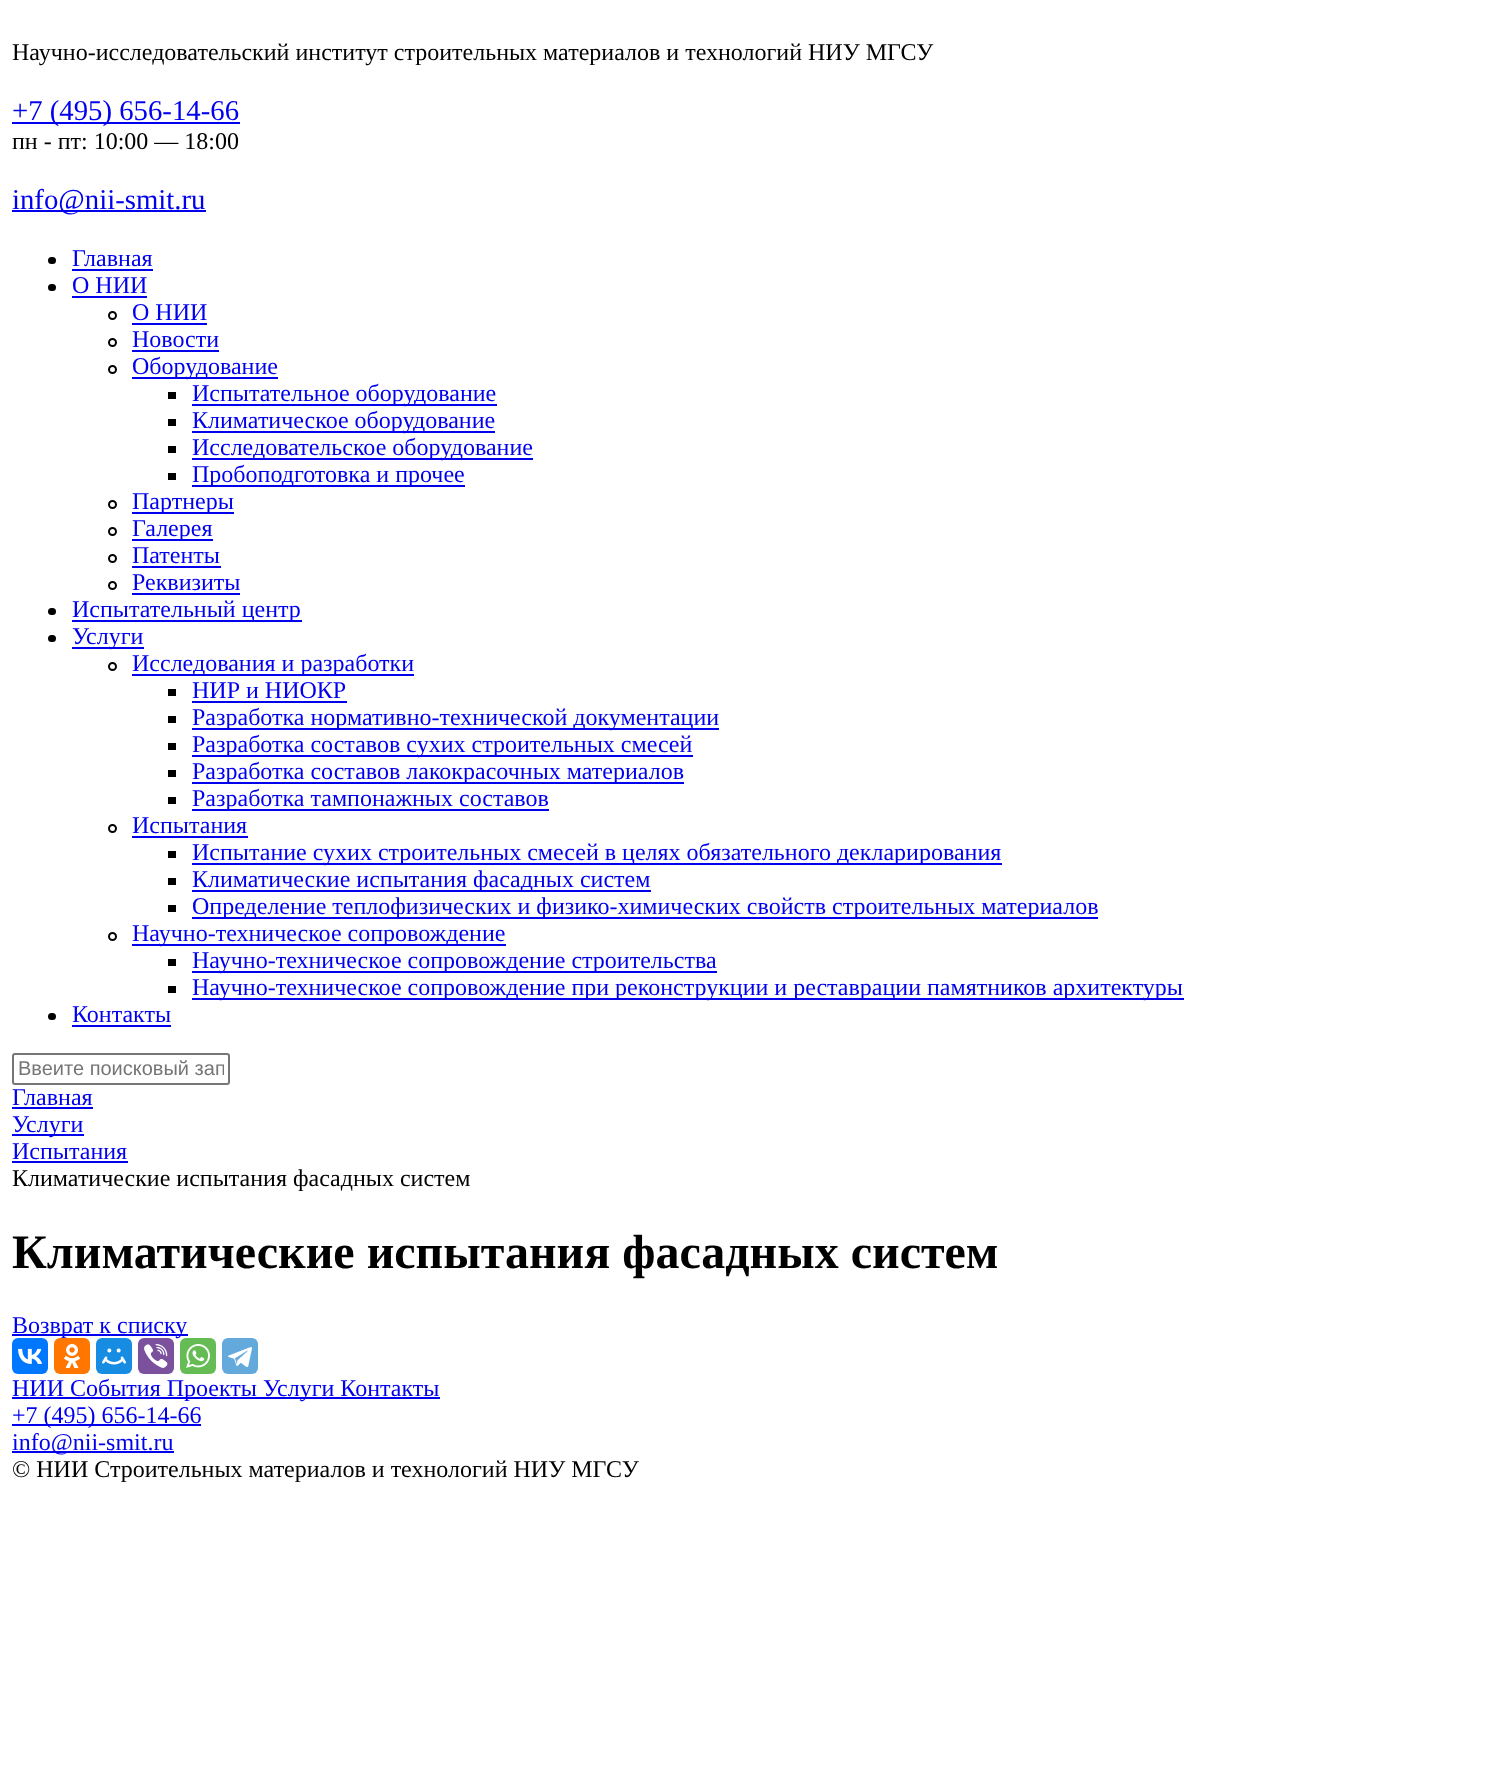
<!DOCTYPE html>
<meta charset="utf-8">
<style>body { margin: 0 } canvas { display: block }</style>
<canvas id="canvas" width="1502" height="1791"></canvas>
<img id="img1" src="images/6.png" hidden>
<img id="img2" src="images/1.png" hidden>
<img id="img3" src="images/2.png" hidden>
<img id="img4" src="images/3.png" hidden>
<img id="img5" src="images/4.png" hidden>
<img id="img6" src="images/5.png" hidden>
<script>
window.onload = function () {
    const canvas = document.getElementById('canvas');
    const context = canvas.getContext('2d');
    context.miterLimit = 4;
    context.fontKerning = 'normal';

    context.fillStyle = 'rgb(255, 255, 255)';
    context.fillRect(0, 0, 1502, 1791);
    context.fillStyle = 'rgb(0, 0, 238)';
    context.fillRect(12, 122, 228, 2);
    context.fillRect(12, 210, 194, 2);
    context.fillStyle = 'rgb(0, 0, 0)';
    context.beginPath();
    context.roundRect(48, 257, 8, 7, 3.5);
    context.fill();
    context.fillStyle = 'rgb(0, 0, 238)';
    context.fillRect(72, 269, 81, 2);
    context.fillStyle = 'rgb(0, 0, 0)';
    context.beginPath();
    context.roundRect(48, 284, 8, 7, 3.5);
    context.fill();
    context.fillStyle = 'rgb(0, 0, 238)';
    context.fillRect(72, 296, 75, 2);
    context.beginPath();
    context.arc(112.5, 315.5, 3.5, 0, 2 * Math.PI);
    context.strokeStyle = 'rgb(0, 0, 0)';
    context.lineWidth = 2;
    context.stroke();
    context.fillRect(132, 323, 75, 2);
    context.beginPath();
    context.arc(112.5, 342.5, 3.5, 0, 2 * Math.PI);
    context.stroke();
    context.fillRect(132, 350, 87, 2);
    context.beginPath();
    context.arc(112.5, 369.5, 3.5, 0, 2 * Math.PI);
    context.stroke();
    context.fillRect(132, 377, 146, 2);
    context.fillStyle = 'rgb(0, 0, 0)';
    context.fillRect(168, 392, 8, 7);
    context.fillStyle = 'rgb(0, 0, 238)';
    context.fillRect(192, 404, 305, 2);
    context.fillStyle = 'rgb(0, 0, 0)';
    context.fillRect(168, 419, 8, 7);
    context.fillStyle = 'rgb(0, 0, 238)';
    context.fillRect(192, 431, 303, 2);
    context.fillStyle = 'rgb(0, 0, 0)';
    context.fillRect(168, 446, 8, 7);
    context.fillStyle = 'rgb(0, 0, 238)';
    context.fillRect(192, 458, 341, 2);
    context.fillStyle = 'rgb(0, 0, 0)';
    context.fillRect(168, 473, 8, 7);
    context.fillStyle = 'rgb(0, 0, 238)';
    context.fillRect(192, 485, 273, 2);
    context.beginPath();
    context.arc(112.5, 504.5, 3.5, 0, 2 * Math.PI);
    context.stroke();
    context.fillRect(132, 512, 102, 2);
    context.beginPath();
    context.arc(112.5, 531.5, 3.5, 0, 2 * Math.PI);
    context.stroke();
    context.fillRect(132, 539, 81, 2);
    context.beginPath();
    context.arc(112.5, 558.5, 3.5, 0, 2 * Math.PI);
    context.stroke();
    context.fillRect(132, 566, 89, 2);
    context.beginPath();
    context.arc(112.5, 585.5, 3.5, 0, 2 * Math.PI);
    context.stroke();
    context.fillRect(132, 593, 108, 2);
    context.fillStyle = 'rgb(0, 0, 0)';
    context.beginPath();
    context.roundRect(48, 608, 8, 7, 3.5);
    context.fill();
    context.fillStyle = 'rgb(0, 0, 238)';
    context.fillRect(72, 620, 230, 2);
    context.fillStyle = 'rgb(0, 0, 0)';
    context.beginPath();
    context.roundRect(48, 635, 8, 7, 3.5);
    context.fill();
    context.fillStyle = 'rgb(0, 0, 238)';
    context.fillRect(72, 647, 72, 2);
    context.beginPath();
    context.arc(112.5, 666.5, 3.5, 0, 2 * Math.PI);
    context.stroke();
    context.fillRect(132, 674, 282, 2);
    context.fillStyle = 'rgb(0, 0, 0)';
    context.fillRect(168, 689, 8, 7);
    context.fillStyle = 'rgb(0, 0, 238)';
    context.fillRect(192, 701, 155, 2);
    context.fillStyle = 'rgb(0, 0, 0)';
    context.fillRect(168, 716, 8, 7);
    context.fillStyle = 'rgb(0, 0, 238)';
    context.fillRect(192, 728, 527, 2);
    context.fillStyle = 'rgb(0, 0, 0)';
    context.fillRect(168, 743, 8, 7);
    context.fillStyle = 'rgb(0, 0, 238)';
    context.fillRect(192, 755, 501, 2);
    context.fillStyle = 'rgb(0, 0, 0)';
    context.fillRect(168, 770, 8, 7);
    context.fillStyle = 'rgb(0, 0, 238)';
    context.fillRect(192, 782, 492, 2);
    context.fillStyle = 'rgb(0, 0, 0)';
    context.fillRect(168, 797, 8, 7);
    context.fillStyle = 'rgb(0, 0, 238)';
    context.fillRect(192, 809, 357, 2);
    context.beginPath();
    context.arc(112.5, 828.5, 3.5, 0, 2 * Math.PI);
    context.stroke();
    context.fillRect(132, 836, 116, 2);
    context.fillStyle = 'rgb(0, 0, 0)';
    context.fillRect(168, 851, 8, 7);
    context.fillStyle = 'rgb(0, 0, 238)';
    context.fillRect(192, 863, 810, 2);
    context.fillStyle = 'rgb(0, 0, 0)';
    context.fillRect(168, 878, 8, 7);
    context.fillStyle = 'rgb(0, 0, 238)';
    context.fillRect(192, 890, 459, 2);
    context.fillStyle = 'rgb(0, 0, 0)';
    context.fillRect(168, 905, 8, 7);
    context.fillStyle = 'rgb(0, 0, 238)';
    context.fillRect(192, 917, 906, 2);
    context.beginPath();
    context.arc(112.5, 936.5, 3.5, 0, 2 * Math.PI);
    context.stroke();
    context.fillRect(132, 944, 374, 2);
    context.fillStyle = 'rgb(0, 0, 0)';
    context.fillRect(168, 959, 8, 7);
    context.fillStyle = 'rgb(0, 0, 238)';
    context.fillRect(192, 971, 525, 2);
    context.fillStyle = 'rgb(0, 0, 0)';
    context.fillRect(168, 986, 8, 7);
    context.fillStyle = 'rgb(0, 0, 238)';
    context.fillRect(192, 998, 992, 2);
    context.fillStyle = 'rgb(0, 0, 0)';
    context.beginPath();
    context.roundRect(48, 1013, 8, 7, 3.5);
    context.fill();
    context.fillStyle = 'rgb(0, 0, 238)';
    context.fillRect(72, 1025, 99, 2);
    context.beginPath();
    context.roundRect(13, 1054, 216, 30, 2);
    context.strokeStyle = 'rgb(118, 118, 118)';
    context.stroke();
    context.fillRect(12, 1107, 81, 2);
    context.fillRect(12, 1134, 72, 2);
    context.fillRect(12, 1161, 116, 2);
    context.fillRect(12, 1334, 176, 2);
    context.fillStyle = 'rgb(100, 169, 220)';
    context.beginPath();
    context.roundRect(222, 1338, 36, 36, 6);
    context.fill();
    context.drawImage(document.getElementById('img1'), 228, 1347, 24, 21);
    context.fillStyle = 'rgb(0, 0, 238)';
    context.fillRect(12, 1397, 428, 2);
    context.fillRect(12, 1424, 189, 2);
    context.fillRect(12, 1451, 162, 2);
    context.font = '24px Liberation Serif';
    context.fillStyle = 'rgb(0, 0, 0)';
    context.fillText('Научно-исследовательский институт строительных материалов и технологий НИУ МГСУ', 12, 60);
    context.font = '28.75px Liberation Serif';
    context.fillStyle = 'rgb(0, 0, 238)';
    context.fillText('+7 (495) 656-14-66', 12, 120);
    context.font = '24px Liberation Serif';
    context.fillStyle = 'rgb(0, 0, 0)';
    context.fillText('пн - пт: 10:00 — 18:00', 12, 149);
    context.font = '28.75px Liberation Serif';
    context.fillStyle = 'rgb(0, 0, 238)';
    context.fillText('info@nii-smit.ru', 12, 209);
    context.font = '24px Liberation Serif';
    context.fillText('Главная', 72, 266);
    context.fillText('О НИИ', 72, 293);
    context.fillText('О НИИ', 132, 320);
    context.fillText('Новости', 132, 347);
    context.fillText('Оборудование', 132, 374);
    context.fillText('Испытательное оборудование', 192, 401);
    context.fillText('Климатическое оборудование', 192, 428);
    context.fillText('Исследовательское оборудование', 192, 455);
    context.fillText('Пробоподготовка и прочее', 192, 482);
    context.fillText('Партнеры', 132, 509);
    context.fillText('Галерея', 132, 536);
    context.fillText('Патенты', 132, 563);
    context.fillText('Реквизиты', 132, 590);
    context.fillText('Испытательный центр', 72, 617);
    context.fillText('Услуги', 72, 644);
    context.fillText('Исследования и разработки', 132, 671);
    context.fillText('НИР и НИОКР', 192, 698);
    context.fillText('Разработка нормативно-технической документации', 192, 725);
    context.fillText('Разработка составов сухих строительных смесей', 192, 752);
    context.fillText('Разработка составов лакокрасочных материалов', 192, 779);
    context.fillText('Разработка тампонажных составов', 192, 806);
    context.fillText('Испытания', 132, 833);
    context.fillText('Испытание сухих строительных смесей в целях обязательного декларирования', 192, 860);
    context.fillText('Климатические испытания фасадных систем', 192, 887);
    context.fillText('Определение теплофизических и физико-химических свойств строительных материалов', 192, 914);
    context.fillText('Научно-техническое сопровождение', 132, 941);
    context.fillText('Научно-техническое сопровождение строительства', 192, 968);
    context.fillText('Научно-техническое сопровождение при реконструкции и реставрации памятников архитектуры', 192, 995);
    context.fillText('Контакты', 72, 1022);
    context.save();
    context.beginPath();
    context.rect(18, 1058, 206, 22);
    context.clip();
    context.font = '20px Liberation Sans';
    context.fillStyle = 'rgb(117, 117, 117)';
    context.fillText('Ввеите поисковый зап', 18, 1075);
    context.restore();
    context.fillText('Главная', 12, 1105);
    context.fillText('Услуги', 12, 1132);
    context.fillText('Испытания', 12, 1159);
    context.fillStyle = 'rgb(0, 0, 0)';
    context.fillText('Климатические испытания фасадных систем', 12, 1186);
    context.font = 'bold 48px Liberation Serif';
    context.fillText('Климатические испытания фасадных систем', 12, 1268);
    context.font = '24px Liberation Serif';
    context.fillStyle = 'rgb(0, 0, 238)';
    context.fillText('Возврат к списку', 12, 1333);
    context.fillStyle = 'rgb(0, 119, 255)';
    context.beginPath();
    context.roundRect(12, 1338, 36, 36, 6);
    context.fill();
    context.drawImage(document.getElementById('img2'), 18, 1348, 24, 16);
    context.fillStyle = 'rgb(255, 119, 0)';
    context.beginPath();
    context.roundRect(54, 1338, 36, 36, 6);
    context.fill();
    context.drawImage(document.getElementById('img3'), 64, 1344, 17, 24);
    context.fillStyle = 'rgb(22, 141, 226)';
    context.beginPath();
    context.roundRect(96, 1338, 36, 36, 6);
    context.fill();
    context.drawImage(document.getElementById('img4'), 102, 1348, 24, 17);
    context.fillStyle = 'rgb(123, 81, 157)';
    context.beginPath();
    context.roundRect(138, 1338, 36, 36, 6);
    context.fill();
    context.drawImage(document.getElementById('img5'), 144, 1344, 24, 24);
    context.fillStyle = 'rgb(101, 188, 84)';
    context.beginPath();
    context.roundRect(180, 1338, 36, 36, 6);
    context.fill();
    context.drawImage(document.getElementById('img6'), 186, 1344, 24, 24);
    context.fillStyle = 'rgb(0, 0, 238)';
    context.fillText('НИИ События Проекты Услуги Контакты', 12, 1396);
    context.fillText('+7 (495) 656-14-66', 12, 1423);
    context.fillText('info@nii-smit.ru', 12, 1450);
    context.fillStyle = 'rgb(0, 0, 0)';
    context.fillText('© НИИ Строительных материалов и технологий НИУ МГСУ', 12, 1477);
};
</script>
